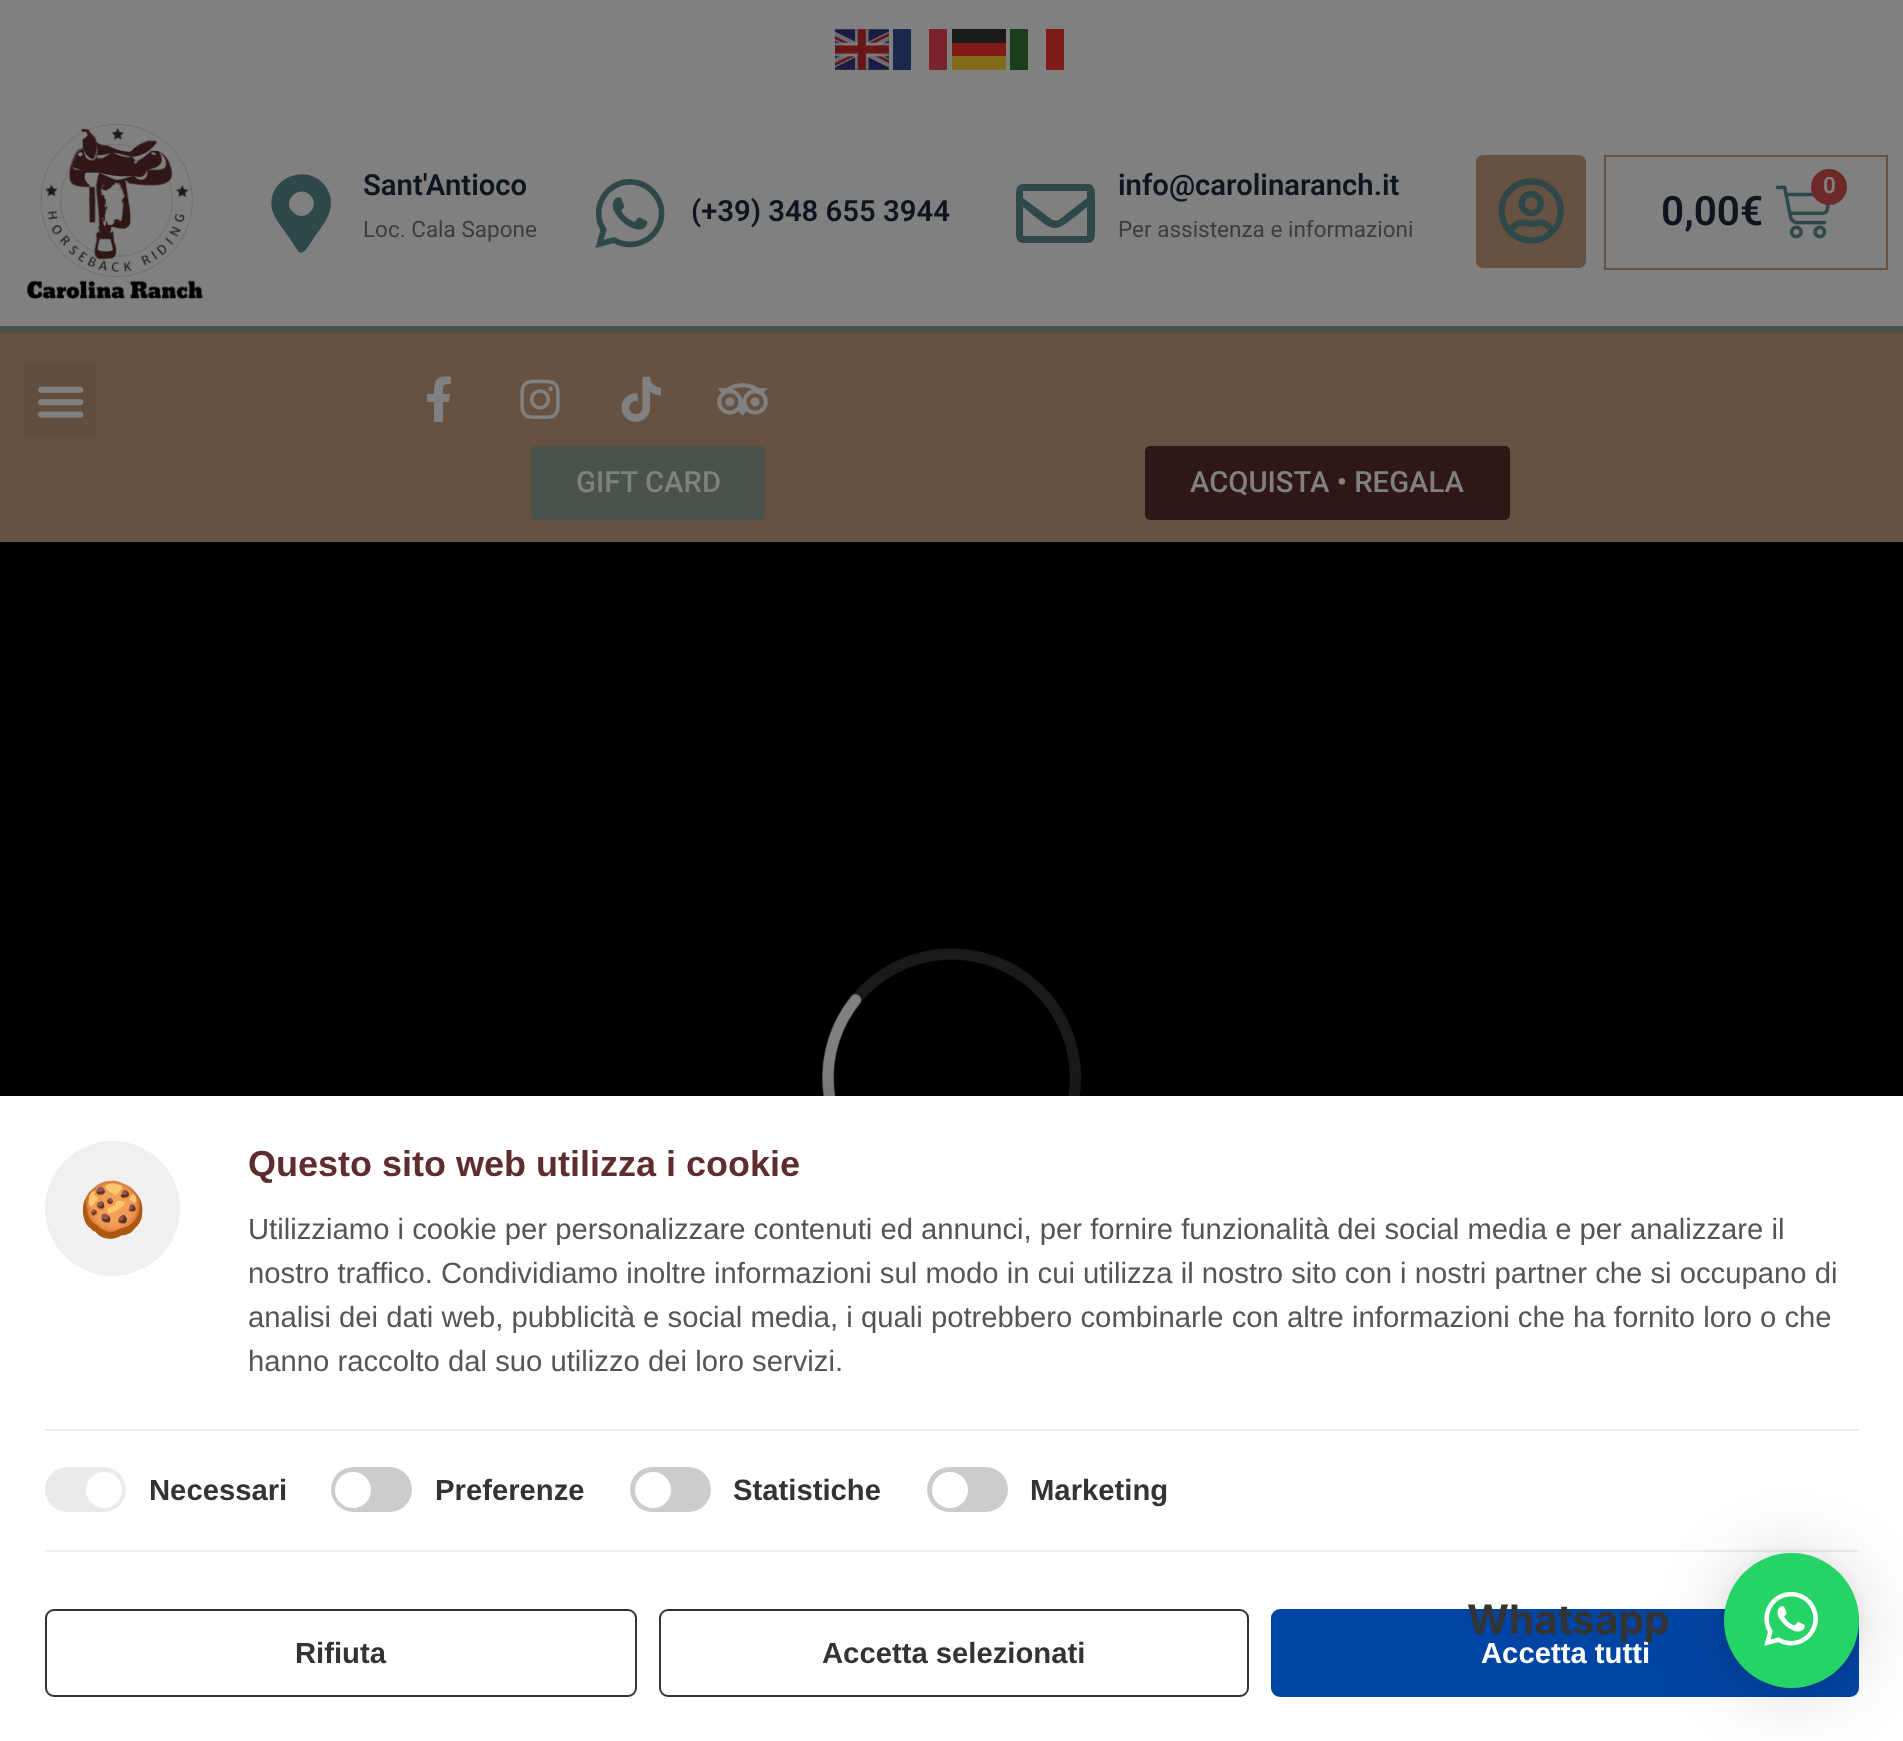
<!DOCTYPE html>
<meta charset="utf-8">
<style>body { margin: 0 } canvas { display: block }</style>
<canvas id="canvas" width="1903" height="1741"></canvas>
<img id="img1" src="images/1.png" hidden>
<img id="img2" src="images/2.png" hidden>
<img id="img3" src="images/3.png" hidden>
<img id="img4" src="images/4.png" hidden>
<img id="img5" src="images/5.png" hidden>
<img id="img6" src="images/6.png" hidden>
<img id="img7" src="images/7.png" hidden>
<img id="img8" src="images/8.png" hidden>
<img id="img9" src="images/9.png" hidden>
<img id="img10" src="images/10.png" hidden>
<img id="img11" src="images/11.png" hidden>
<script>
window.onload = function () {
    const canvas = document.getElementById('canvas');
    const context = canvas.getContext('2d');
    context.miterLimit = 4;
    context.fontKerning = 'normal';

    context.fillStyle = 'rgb(128, 128, 128)';
    context.fillRect(0, 0, 1903, 1741);
    context.drawImage(document.getElementById('img1'), 835, 29, 54, 41);
    context.fillStyle = 'rgb(26, 41, 77)';
    context.fillRect(893, 29, 18, 41);
    context.fillStyle = 'rgb(123, 35, 45)';
    context.fillRect(929, 29, 18, 41);
    context.fillStyle = 'rgb(26, 26, 26)';
    context.fillRect(952, 29, 54, 14);
    context.fillStyle = 'rgb(26, 61, 26)';
    context.fillRect(1010, 29, 18, 41);
    context.fillStyle = 'rgb(127, 26, 26)';
    context.fillRect(1046, 29, 18, 41);
    context.fillStyle = 'rgb(128, 26, 26)';
    context.fillRect(952, 43, 54, 13);
    context.fillStyle = 'rgb(128, 107, 26)';
    context.fillRect(952, 56, 54, 14);
    context.drawImage(document.getElementById('img2'), 26, 124, 178, 175);
    context.fillStyle = 'rgb(47, 72, 73)';
    context.beginPath();
    context.moveTo(298, 251);
    context.lineTo(286, 233);
    context.bezierCurveTo(281, 226, 274, 218, 272, 209);
    context.bezierCurveTo(266, 178, 308, 161, 326, 187);
    context.bezierCurveTo(339, 207, 324, 224, 313, 239);
    context.bezierCurveTo(311, 242, 306, 251, 303, 252);
    context.bezierCurveTo(302, 253, 299, 253, 298, 251);
    context.closePath();
    context.moveTo(293, 212);
    context.bezierCurveTo(304, 224, 322, 206, 310, 195);
    context.bezierCurveTo(299, 184, 281, 201, 293, 212);
    context.closePath();
    context.fill();
    context.drawImage(document.getElementById('img3'), 595, 179, 70, 69);
    context.beginPath();
    context.moveTo(1087, 184);
    context.bezierCurveTo(1096, 184, 1095, 193, 1095, 199);
    context.lineTo(1095, 228);
    context.bezierCurveTo(1095, 233, 1096, 242, 1089, 243);
    context.lineTo(1023, 243);
    context.bezierCurveTo(1015, 243, 1016, 234, 1016, 228);
    context.lineTo(1016, 199);
    context.bezierCurveTo(1016, 182, 1018, 184, 1034, 184);
    context.closePath();
    context.moveTo(1087, 191);
    context.lineTo(1023, 191);
    context.lineTo(1023, 198);
    context.lineTo(1047, 216);
    context.bezierCurveTo(1054, 222, 1057, 222, 1064, 216);
    context.lineTo(1087, 198);
    context.closePath();
    context.moveTo(1023, 236);
    context.lineTo(1087, 236);
    context.lineTo(1087, 207);
    context.bezierCurveTo(1052, 235, 1058, 235, 1023, 207);
    context.closePath();
    context.fill();
    context.fillStyle = 'rgb(103, 82, 65)';
    context.beginPath();
    context.roundRect(1476, 155, 110, 113, 7);
    context.fill();
    context.drawImage(document.getElementById('img4'), 1498, 178, 66, 66);
    context.strokeStyle = 'rgb(103, 82, 65)';
    context.lineWidth = 2;
    context.strokeRect(1605, 156, 282, 113);
    context.drawImage(document.getElementById('img5'), 1775, 185, 55, 54);
    context.fillStyle = 'rgb(109, 42, 40)';
    context.beginPath();
    context.arc(1829, 187, 18, 0, 2 * Math.PI);
    context.fill();
    context.fillStyle = 'rgb(103, 82, 65)';
    context.fillRect(0, 333, 1903, 209);
    context.fillStyle = 'rgb(73, 83, 74)';
    context.fillRect(0, 326, 1903, 7);
    context.fillStyle = 'rgb(98, 78, 62)';
    context.beginPath();
    context.roundRect(23, 362, 74, 75, 7);
    context.fill();
    context.drawImage(document.getElementById('img6'), 38, 386, 46, 32);
    context.fillStyle = 'rgb(128, 128, 128)';
    context.beginPath();
    context.moveTo(449, 402);
    context.lineTo(443, 402);
    context.lineTo(443, 422);
    context.lineTo(434, 422);
    context.lineTo(434, 402);
    context.lineTo(427, 402);
    context.lineTo(427, 394);
    context.lineTo(434, 394);
    context.bezierCurveTo(434, 380, 436, 375, 451, 377);
    context.lineTo(451, 384);
    context.bezierCurveTo(442, 384, 443, 386, 443, 394);
    context.lineTo(450, 394);
    context.closePath();
    context.fill();
    context.drawImage(document.getElementById('img7'), 520, 379, 40, 41);
    context.drawImage(document.getElementById('img8'), 621, 376, 40, 46);
    context.drawImage(document.getElementById('img9'), 717, 383, 51, 33);
    context.fillStyle = 'rgb(73, 83, 74)';
    context.beginPath();
    context.roundRect(531, 446, 234, 74, 5);
    context.fill();
    context.fillStyle = 'rgb(48, 23, 23)';
    context.beginPath();
    context.roundRect(1145, 446, 365, 74, 5);
    context.fill();
    context.fillStyle = 'rgb(0, 0, 0)';
    context.fillRect(0, 542, 1903, 554);
    context.drawImage(document.getElementById('img10'), 821, 948, 260, 148);
    context.fillStyle = 'rgba(0, 0, 0, 0.1)';
    context.filter = 'blur(22.5px)';
    context.beginPath();
    context.rect(0, 1087, 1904, 646);
    context.fill();
    context.filter = 'none';
    context.fillStyle = 'rgb(255, 255, 255)';
    context.fillRect(0, 1096, 1903, 645);
    context.fillStyle = 'rgb(240, 240, 240)';
    context.beginPath();
    context.arc(112.5, 1208.5, 67.5, 0, 2 * Math.PI);
    context.fill();
    context.fillStyle = 'rgb(238, 238, 238)';
    context.fillRect(45, 1429, 1814, 2);
    context.fillRect(45, 1550, 1814, 2);
    context.fillStyle = 'rgb(234, 234, 234)';
    context.beginPath();
    context.roundRect(45, 1467, 81, 45, 22.5);
    context.fill();
    context.fillStyle = 'rgb(255, 255, 255)';
    context.beginPath();
    context.arc(104, 1490, 18, 0, 2 * Math.PI);
    context.fill();
    context.fillStyle = 'rgb(204, 204, 204)';
    context.beginPath();
    context.roundRect(331, 1467, 81, 45, 22.5);
    context.fill();
    context.fillStyle = 'rgb(255, 255, 255)';
    context.beginPath();
    context.arc(353, 1490, 18, 0, 2 * Math.PI);
    context.fill();
    context.fillStyle = 'rgb(204, 204, 204)';
    context.beginPath();
    context.roundRect(630, 1467, 81, 45, 22.5);
    context.fill();
    context.fillStyle = 'rgb(255, 255, 255)';
    context.beginPath();
    context.arc(653, 1490, 18, 0, 2 * Math.PI);
    context.fill();
    context.fillStyle = 'rgb(204, 204, 204)';
    context.beginPath();
    context.roundRect(927, 1467, 81, 45, 22.5);
    context.fill();
    context.fillStyle = 'rgb(255, 255, 255)';
    context.beginPath();
    context.arc(950, 1490, 18, 0, 2 * Math.PI);
    context.fill();
    context.beginPath();
    context.roundRect(46, 1610, 590, 86, 8);
    context.strokeStyle = 'rgb(51, 51, 51)';
    context.stroke();
    context.beginPath();
    context.roundRect(660, 1610, 588, 86, 8);
    context.stroke();
    context.fillStyle = 'rgb(0, 69, 164)';
    context.beginPath();
    context.roundRect(1271, 1609, 588, 88, 9);
    context.fill();
    context.fillStyle = 'rgba(0, 0, 0, 0.16)';
    context.filter = 'blur(36px)';
    context.beginPath();
    context.roundRect(1724, 1557, 135, 135, 67.5);
    context.fill();
    context.filter = 'none';
    context.fillStyle = 'rgba(0, 0, 0, 0.06)';
    context.filter = 'blur(7px)';
    context.beginPath();
    context.roundRect(1724, 1555, 135, 135, 67.5);
    context.fill();
    context.filter = 'none';
    context.fillStyle = 'rgb(37, 211, 102)';
    context.beginPath();
    context.arc(1791.5, 1620.5, 67.5, 0, 2 * Math.PI);
    context.fill();
    context.drawImage(document.getElementById('img11'), 1764, 1591, 54, 55);
    context.font = '600 29.25px Roboto';
    context.fillStyle = 'rgb(15, 21, 30)';
    context.fillText('Sant\'Antioco', 363, 195);
    context.font = '22.5px Roboto';
    context.fillStyle = 'rgb(61, 61, 61)';
    context.fillText('Loc. Cala Sapone', 363, 237);
    context.font = '600 29.25px Roboto';
    context.fillStyle = 'rgb(15, 21, 30)';
    context.fillText('(+39) 348 655 3944', 691, 221);
    context.fillText('info@carolinaranch.it', 1118, 195);
    context.font = '22.5px Roboto';
    context.fillStyle = 'rgb(61, 61, 61)';
    context.fillText('Per assistenza e informazioni', 1118, 237);
    context.font = '600 22.5px Roboto';
    context.fillStyle = 'rgb(128, 128, 128)';
    context.fillText('0', 1823, 193);
    context.font = '600 40.5px Roboto';
    context.fillStyle = 'rgb(15, 21, 30)';
    context.fillText('0,00€', 1661, 225);
    context.font = '500 29.25px Roboto';
    context.fillStyle = 'rgb(128, 128, 128)';
    context.fillText('GIFT CARD', 576, 492);
    context.fillText('ACQUISTA • REGALA', 1190, 492);
    context.font = '54px Noto Color Emoji';
    context.fillStyle = 'rgb(51, 51, 51)';
    context.fillText('🍪', 79, 1228);
    context.font = 'bold 36px Liberation Sans';
    context.fillStyle = 'rgb(95, 45, 46)';
    context.fillText('Questo sito web utilizza i cookie', 248, 1176);
    context.font = '29.25px Liberation Sans';
    context.fillStyle = 'rgb(85, 85, 85)';
    context.fillText('Utilizziamo i cookie per personalizzare contenuti ed annunci, per fornire funzionalità dei social media e per analizzare il', 248, 1239);
    context.fillText('nostro traffico. Condividiamo inoltre informazioni sul modo in cui utilizza il nostro sito con i nostri partner che si occupano di', 248, 1283);
    context.fillText('analisi dei dati web, pubblicità e social media, i quali potrebbero combinarle con altre informazioni che ha fornito loro o che', 248, 1327);
    context.fillText('hanno raccolto dal suo utilizzo dei loro servizi.', 248, 1371);
    context.font = 'bold 29.25px Liberation Sans';
    context.fillStyle = 'rgb(51, 51, 51)';
    context.fillText('Necessari', 149, 1500);
    context.fillText('Preferenze', 435, 1500);
    context.fillText('Statistiche', 733, 1500);
    context.fillText('Marketing', 1030, 1500);
    context.fillText('Rifiuta', 295, 1663);
    context.fillText('Accetta selezionati', 822, 1663);
    context.fillStyle = 'rgb(255, 255, 255)';
    context.fillText('Accetta tutti', 1481, 1663);
    context.font = 'bold 40.5px Inter';
    context.fillStyle = 'rgb(51, 51, 51)';
    context.fillText('Whatsapp', 1467, 1634);
};
</script>
